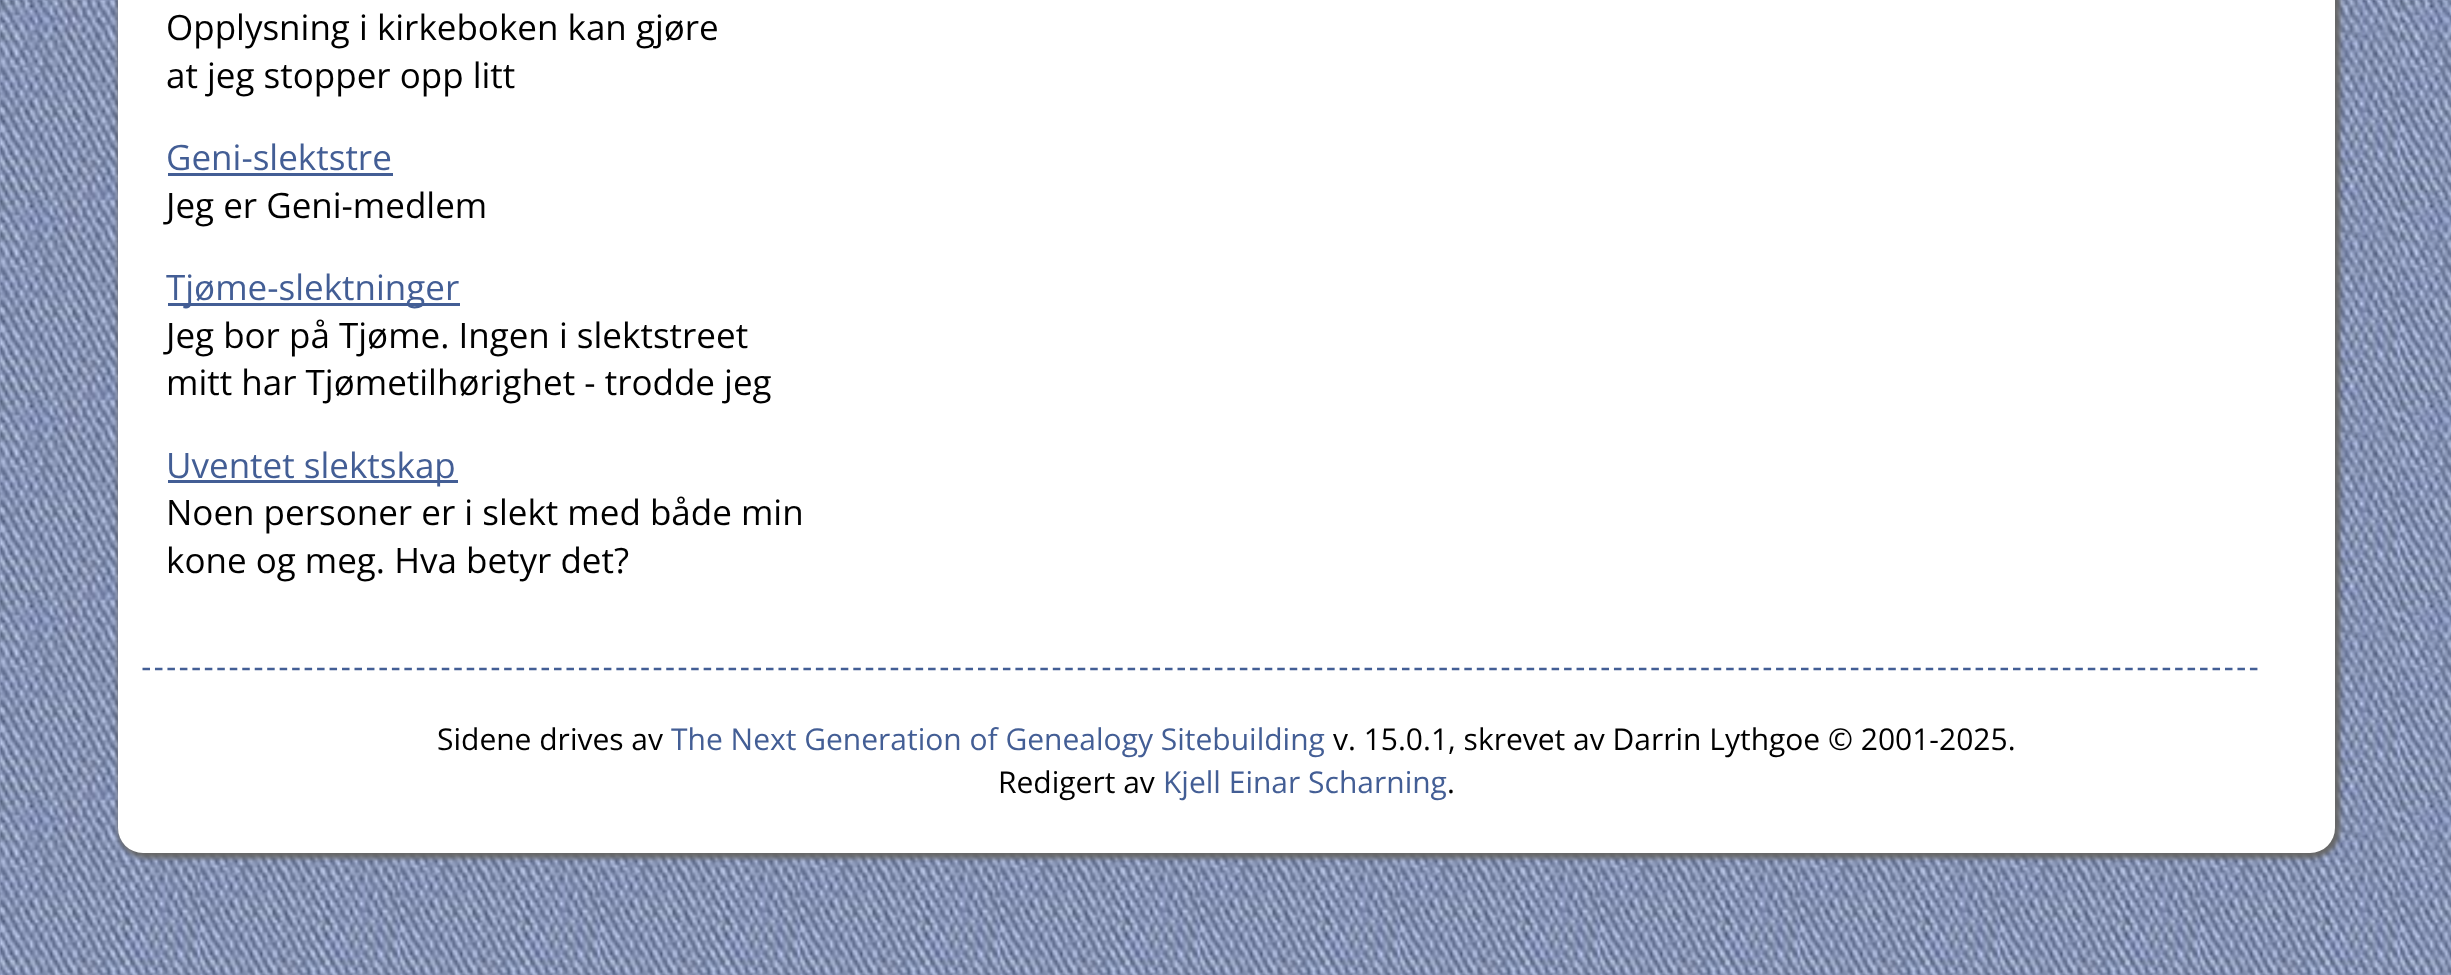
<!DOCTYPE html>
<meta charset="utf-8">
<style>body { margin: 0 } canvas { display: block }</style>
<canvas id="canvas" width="2451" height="975"></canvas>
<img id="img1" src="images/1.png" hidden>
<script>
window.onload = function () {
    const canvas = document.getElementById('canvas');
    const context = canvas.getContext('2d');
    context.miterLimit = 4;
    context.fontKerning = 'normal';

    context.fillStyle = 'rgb(255, 255, 255)';
    context.fillRect(0, 0, 2451, 975);
    context.drawImage(document.getElementById('img1'), 0, 0, 2451, 975);
    context.fillStyle = 'rgb(102, 102, 102)';
    context.filter = 'blur(2.5px)';
    context.beginPath();
    context.roundRect(118, -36, 2222, 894, 28);
    context.fill();
    context.filter = 'none';
    context.fillStyle = 'rgb(255, 255, 255)';
    context.beginPath();
    context.roundRect(118, -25, 2217, 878, 25);
    context.fill();
    context.fillStyle = 'rgb(67, 94, 149)';
    context.fillRect(168, 173, 225, 3);
    context.fillRect(168, 303, 292, 3);
    context.fillRect(168, 480, 290, 3);
    context.beginPath();
    context.moveTo(142.5, 669);
    context.lineTo(2260, 669);
    context.strokeStyle = 'rgb(67, 94, 149)';
    context.lineWidth = 2.5;
    context.setLineDash([7.5, 4.97]);
    context.stroke();
    context.font = '35px Open Sans';
    context.fillStyle = 'rgb(0, 0, 0)';
    context.fillText('Opplysning i kirkeboken kan gjøre', 166, 40);
    context.fillText('at jeg stopper opp litt', 166, 88);
    context.fillStyle = 'rgb(67, 94, 149)';
    context.fillText('Geni-slektstre', 166, 170);
    context.fillStyle = 'rgb(0, 0, 0)';
    context.fillText('Jeg er Geni-medlem', 166, 218);
    context.fillStyle = 'rgb(67, 94, 149)';
    context.fillText('Tjøme-slektninger', 166, 300);
    context.fillStyle = 'rgb(0, 0, 0)';
    context.fillText('Jeg bor på Tjøme. Ingen i slektstreet', 166, 348);
    context.fillText('mitt har Tjømetilhørighet - trodde jeg', 166, 395);
    context.fillStyle = 'rgb(67, 94, 149)';
    context.fillText('Uventet slektskap', 166, 478);
    context.fillStyle = 'rgb(0, 0, 0)';
    context.fillText('Noen personer er i slekt med både min', 166, 525);
    context.fillText('kone og meg. Hva betyr det?', 166, 573);
    context.font = '30px Open Sans';
    context.fillText('Sidene drives av', 437, 750);
    context.fillStyle = 'rgb(67, 94, 149)';
    context.fillText('The Next Generation of Genealogy Sitebuilding', 671, 750);
    context.fillStyle = 'rgb(0, 0, 0)';
    context.fillText('v. 15.0.1, skrevet av Darrin Lythgoe © 2001-2025.', 1333, 750);
    context.fillText('Redigert av', 998, 793);
    context.fillStyle = 'rgb(67, 94, 149)';
    context.fillText('Kjell Einar Scharning', 1163, 793);
    context.fillStyle = 'rgb(0, 0, 0)';
    context.fillText('.', 1447, 793);
};
</script>
